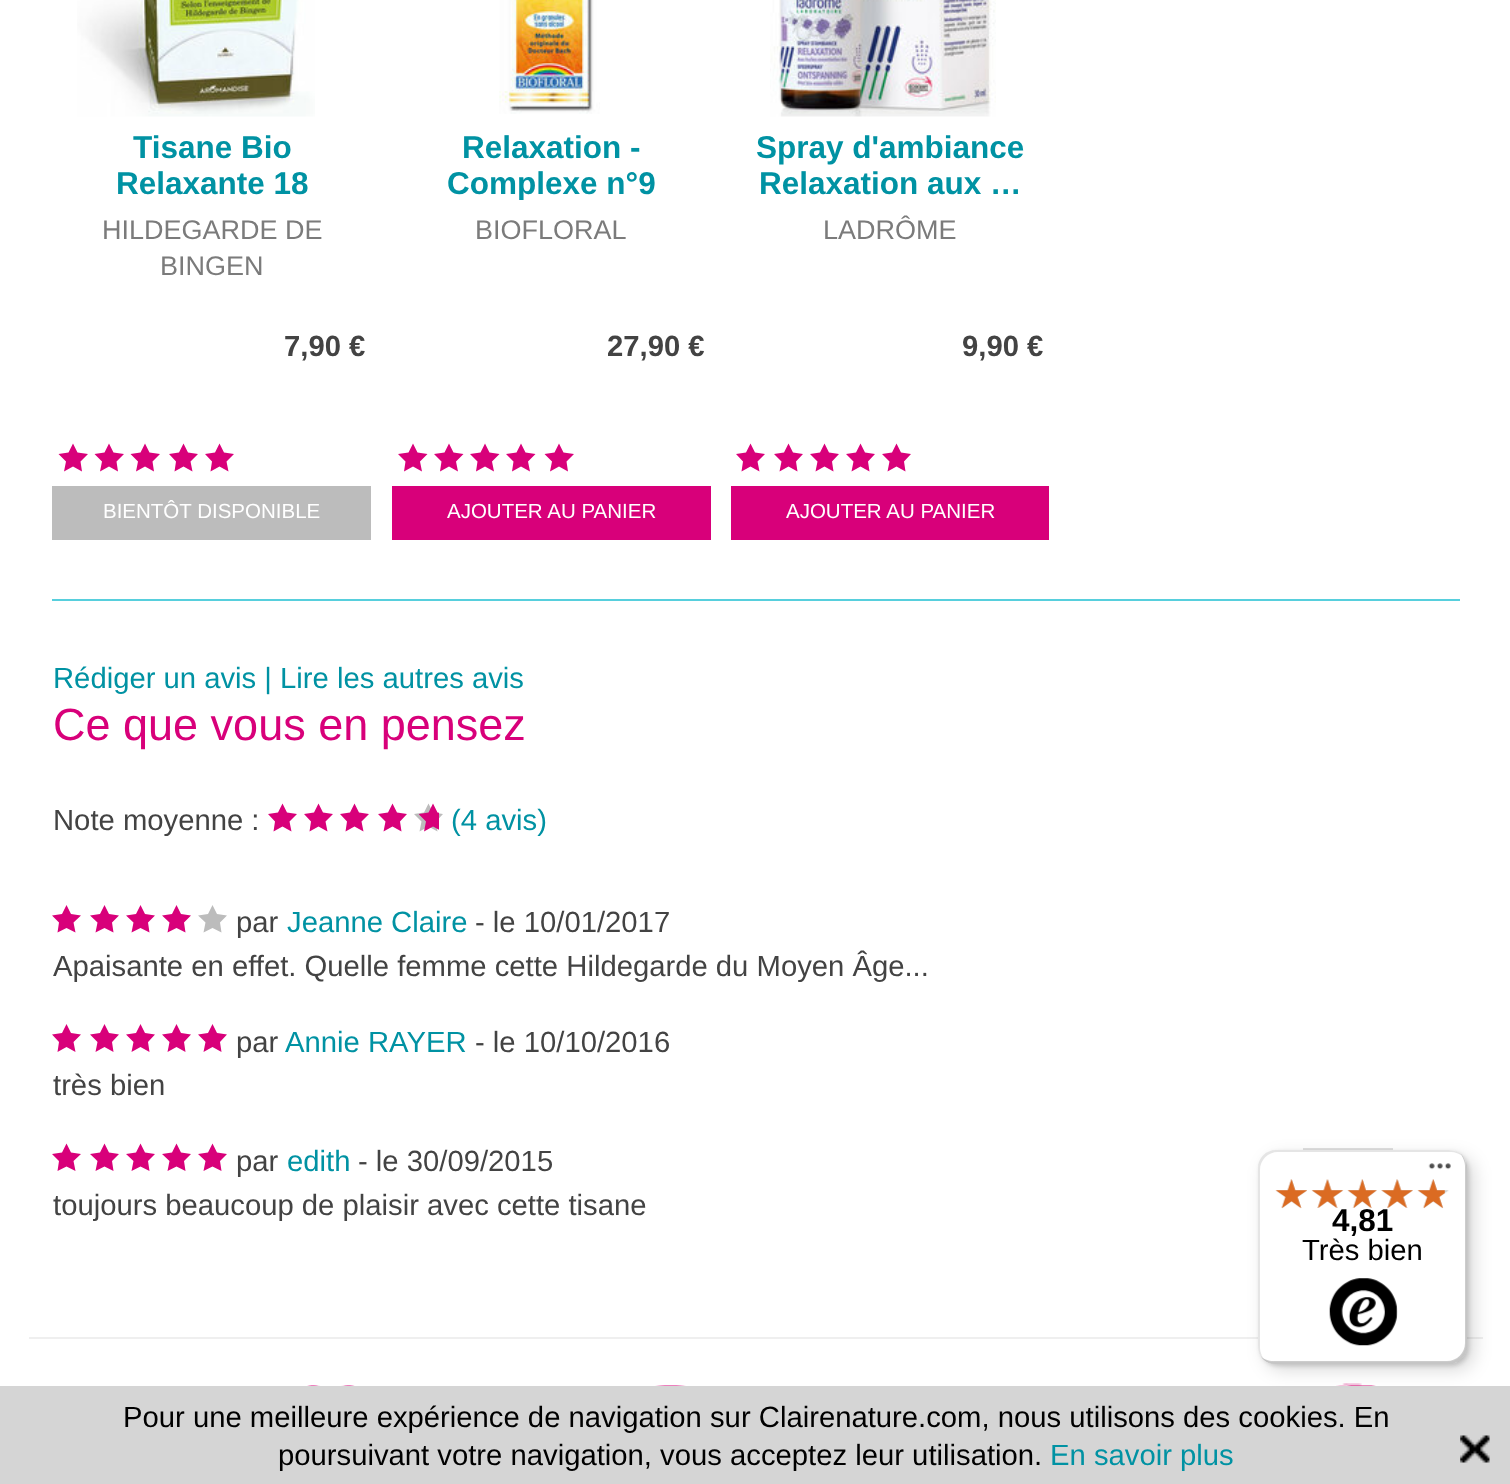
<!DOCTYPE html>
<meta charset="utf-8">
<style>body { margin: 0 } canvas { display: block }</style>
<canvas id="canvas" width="1510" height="1484"></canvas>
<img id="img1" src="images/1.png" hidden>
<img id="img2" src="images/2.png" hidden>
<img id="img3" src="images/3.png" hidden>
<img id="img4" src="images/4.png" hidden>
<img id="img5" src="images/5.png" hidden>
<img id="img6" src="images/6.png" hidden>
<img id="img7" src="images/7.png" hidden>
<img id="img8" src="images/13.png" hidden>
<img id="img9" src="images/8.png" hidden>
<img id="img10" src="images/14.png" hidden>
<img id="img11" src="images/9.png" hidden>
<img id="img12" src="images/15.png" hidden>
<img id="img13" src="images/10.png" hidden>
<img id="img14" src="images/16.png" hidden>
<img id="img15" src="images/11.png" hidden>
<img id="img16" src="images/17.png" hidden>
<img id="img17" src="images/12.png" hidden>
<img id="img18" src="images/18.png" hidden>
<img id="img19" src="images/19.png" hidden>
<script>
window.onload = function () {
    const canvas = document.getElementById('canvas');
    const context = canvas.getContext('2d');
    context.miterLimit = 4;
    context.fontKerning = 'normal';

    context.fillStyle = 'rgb(255, 255, 255)';
    context.fillRect(0, 0, 1510, 1484);
    context.drawImage(document.getElementById('img1'), 77, 0, 238, 117);
    context.fillStyle = 'rgb(216, 0, 122)';
    context.beginPath();
    context.moveTo(88, 454);
    context.lineTo(80.5, 461.5);
    context.lineTo(82, 471.5);
    context.lineTo(73, 466.5);
    context.lineTo(64, 471.5);
    context.lineTo(66, 461.5);
    context.lineTo(58.5, 454);
    context.lineTo(68.5, 452.5);
    context.lineTo(73, 443.5);
    context.lineTo(77.5, 452.5);
    context.closePath();
    context.fill();
    context.beginPath();
    context.moveTo(124, 454);
    context.lineTo(116.5, 461.5);
    context.lineTo(118, 471.5);
    context.lineTo(109, 466.5);
    context.lineTo(100, 471.5);
    context.lineTo(102, 461.5);
    context.lineTo(94.5, 454);
    context.lineTo(104.5, 452.5);
    context.lineTo(109, 443.5);
    context.lineTo(113.5, 452.5);
    context.closePath();
    context.fill();
    context.beginPath();
    context.moveTo(160, 454);
    context.lineTo(152.5, 461.5);
    context.lineTo(154, 471.5);
    context.lineTo(145, 466.5);
    context.lineTo(136, 471.5);
    context.lineTo(138, 461.5);
    context.lineTo(130.5, 454);
    context.lineTo(140.5, 452.5);
    context.lineTo(145, 443.5);
    context.lineTo(149.5, 452.5);
    context.closePath();
    context.fill();
    context.beginPath();
    context.moveTo(198, 454);
    context.lineTo(190.5, 461.5);
    context.lineTo(192.5, 471.5);
    context.lineTo(183.5, 466.5);
    context.lineTo(174.5, 471.5);
    context.lineTo(176, 461.5);
    context.lineTo(169, 454);
    context.lineTo(179, 452.5);
    context.lineTo(183.5, 443.5);
    context.lineTo(188, 452.5);
    context.closePath();
    context.fill();
    context.beginPath();
    context.moveTo(234, 454);
    context.lineTo(226.5, 461.5);
    context.lineTo(228.5, 471.5);
    context.lineTo(219.5, 466.5);
    context.lineTo(210.5, 471.5);
    context.lineTo(212, 461.5);
    context.lineTo(205, 454);
    context.lineTo(215, 452.5);
    context.lineTo(219.5, 443.5);
    context.lineTo(224, 452.5);
    context.closePath();
    context.fill();
    context.fillStyle = 'rgb(188, 188, 188)';
    context.fillRect(52, 486, 319, 54);
    context.drawImage(document.getElementById('img2'), 499, 0, 101, 114);
    context.fillStyle = 'rgb(216, 0, 122)';
    context.beginPath();
    context.moveTo(427.5, 454);
    context.lineTo(420, 461.5);
    context.lineTo(422, 471.5);
    context.lineTo(413, 466.5);
    context.lineTo(404, 471.5);
    context.lineTo(405.5, 461.5);
    context.lineTo(398, 454);
    context.lineTo(408.5, 452.5);
    context.lineTo(413, 443.5);
    context.lineTo(417.5, 452.5);
    context.closePath();
    context.fill();
    context.beginPath();
    context.moveTo(463.5, 454);
    context.lineTo(456, 461.5);
    context.lineTo(458, 471.5);
    context.lineTo(449, 466.5);
    context.lineTo(440, 471.5);
    context.lineTo(441.5, 461.5);
    context.lineTo(434, 454);
    context.lineTo(444.5, 452.5);
    context.lineTo(449, 443.5);
    context.lineTo(453.5, 452.5);
    context.closePath();
    context.fill();
    context.beginPath();
    context.moveTo(499.5, 454);
    context.lineTo(492, 461.5);
    context.lineTo(494, 471.5);
    context.lineTo(485, 466.5);
    context.lineTo(476, 471.5);
    context.lineTo(477.5, 461.5);
    context.lineTo(470, 454);
    context.lineTo(480.5, 452.5);
    context.lineTo(485, 443.5);
    context.lineTo(489.5, 452.5);
    context.closePath();
    context.fill();
    context.beginPath();
    context.moveTo(535.5, 454);
    context.lineTo(528, 461.5);
    context.lineTo(530, 471.5);
    context.lineTo(521, 466.5);
    context.lineTo(512, 471.5);
    context.lineTo(513.5, 461.5);
    context.lineTo(506, 454);
    context.lineTo(516.5, 452.5);
    context.lineTo(521, 443.5);
    context.lineTo(525.5, 452.5);
    context.closePath();
    context.fill();
    context.beginPath();
    context.moveTo(574, 454);
    context.lineTo(566.5, 461.5);
    context.lineTo(568, 471.5);
    context.lineTo(559, 466.5);
    context.lineTo(550, 471.5);
    context.lineTo(552, 461.5);
    context.lineTo(544.5, 454);
    context.lineTo(554.5, 452.5);
    context.lineTo(559, 443.5);
    context.lineTo(563.5, 452.5);
    context.closePath();
    context.fill();
    context.fillRect(392, 486, 319, 54);
    context.drawImage(document.getElementById('img3'), 770, 0, 226, 117);
    context.beginPath();
    context.moveTo(765, 454);
    context.lineTo(757.5, 461.5);
    context.lineTo(759.5, 471.5);
    context.lineTo(750.5, 466.5);
    context.lineTo(741.5, 471.5);
    context.lineTo(743, 461.5);
    context.lineTo(736, 454);
    context.lineTo(746, 452.5);
    context.lineTo(750.5, 443.5);
    context.lineTo(755, 452.5);
    context.closePath();
    context.fill();
    context.beginPath();
    context.moveTo(803, 454);
    context.lineTo(796, 461.5);
    context.lineTo(797.5, 471.5);
    context.lineTo(788.5, 466.5);
    context.lineTo(779.5, 471.5);
    context.lineTo(781.5, 461.5);
    context.lineTo(774, 454);
    context.lineTo(784, 452.5);
    context.lineTo(788.5, 443.5);
    context.lineTo(793, 452.5);
    context.closePath();
    context.fill();
    context.beginPath();
    context.moveTo(839, 454);
    context.lineTo(832, 461.5);
    context.lineTo(833.5, 471.5);
    context.lineTo(824.5, 466.5);
    context.lineTo(815.5, 471.5);
    context.lineTo(817.5, 461.5);
    context.lineTo(810, 454);
    context.lineTo(820, 452.5);
    context.lineTo(824.5, 443.5);
    context.lineTo(829, 452.5);
    context.closePath();
    context.fill();
    context.beginPath();
    context.moveTo(875, 454);
    context.lineTo(868, 461.5);
    context.lineTo(869.5, 471.5);
    context.lineTo(860.5, 466.5);
    context.lineTo(851.5, 471.5);
    context.lineTo(853.5, 461.5);
    context.lineTo(846, 454);
    context.lineTo(856, 452.5);
    context.lineTo(860.5, 443.5);
    context.lineTo(865, 452.5);
    context.closePath();
    context.fill();
    context.beginPath();
    context.moveTo(911, 454);
    context.lineTo(904, 461.5);
    context.lineTo(905.5, 471.5);
    context.lineTo(896.5, 466.5);
    context.lineTo(887.5, 471.5);
    context.lineTo(889.5, 461.5);
    context.lineTo(882, 454);
    context.lineTo(892, 452.5);
    context.lineTo(896.5, 443.5);
    context.lineTo(901, 452.5);
    context.closePath();
    context.fill();
    context.fillRect(731, 486, 318, 54);
    context.fillStyle = 'rgb(87, 207, 221)';
    context.fillRect(52, 599, 1408, 2);
    context.fillStyle = 'rgb(216, 0, 122)';
    context.beginPath();
    context.moveTo(297, 814);
    context.lineTo(289.5, 821.5);
    context.lineTo(291.5, 831.5);
    context.lineTo(282.5, 826.5);
    context.lineTo(273.5, 831.5);
    context.lineTo(275, 821.5);
    context.lineTo(268, 814);
    context.lineTo(278, 812.5);
    context.lineTo(282.5, 803.5);
    context.lineTo(287, 812.5);
    context.closePath();
    context.fill();
    context.beginPath();
    context.moveTo(333, 814);
    context.lineTo(325.5, 821.5);
    context.lineTo(327.5, 831.5);
    context.lineTo(318.5, 826.5);
    context.lineTo(309.5, 831.5);
    context.lineTo(311, 821.5);
    context.lineTo(304, 814);
    context.lineTo(314, 812.5);
    context.lineTo(318.5, 803.5);
    context.lineTo(323, 812.5);
    context.closePath();
    context.fill();
    context.beginPath();
    context.moveTo(369, 814);
    context.lineTo(361.5, 821.5);
    context.lineTo(363.5, 831.5);
    context.lineTo(354.5, 826.5);
    context.lineTo(345.5, 831.5);
    context.lineTo(347, 821.5);
    context.lineTo(340, 814);
    context.lineTo(350, 812.5);
    context.lineTo(354.5, 803.5);
    context.lineTo(359, 812.5);
    context.closePath();
    context.fill();
    context.beginPath();
    context.moveTo(407, 814);
    context.lineTo(400, 821.5);
    context.lineTo(401.5, 831.5);
    context.lineTo(392.5, 826.5);
    context.lineTo(383.5, 831.5);
    context.lineTo(385.5, 821.5);
    context.lineTo(378, 814);
    context.lineTo(388, 812.5);
    context.lineTo(392.5, 803.5);
    context.lineTo(397, 812.5);
    context.closePath();
    context.fill();
    context.fillStyle = 'rgb(188, 188, 188)';
    context.beginPath();
    context.moveTo(443, 814);
    context.lineTo(436, 821.5);
    context.lineTo(437.5, 831.5);
    context.lineTo(428.5, 826.5);
    context.lineTo(419.5, 831.5);
    context.lineTo(421.5, 821.5);
    context.lineTo(414, 814);
    context.lineTo(424, 812.5);
    context.lineTo(428.5, 803.5);
    context.lineTo(433, 812.5);
    context.closePath();
    context.fill();
    context.save();
    context.beginPath();
    context.rect(419, 797, 20, 42);
    context.clip();
    context.fillStyle = 'rgb(216, 0, 122)';
    context.beginPath();
    context.moveTo(448, 814);
    context.lineTo(440.5, 821.5);
    context.lineTo(442, 831.5);
    context.lineTo(433, 826.5);
    context.lineTo(424, 831.5);
    context.lineTo(426, 821.5);
    context.lineTo(418.5, 814);
    context.lineTo(428.5, 812.5);
    context.lineTo(433, 803.5);
    context.lineTo(437.5, 812.5);
    context.closePath();
    context.fill();
    context.restore();
    context.fillStyle = 'rgb(216, 0, 122)';
    context.beginPath();
    context.moveTo(81, 915.5);
    context.lineTo(73.5, 922.5);
    context.lineTo(75.5, 932.5);
    context.lineTo(66.5, 928);
    context.lineTo(57.5, 932.5);
    context.lineTo(59, 922.5);
    context.lineTo(52, 915.5);
    context.lineTo(62, 914);
    context.lineTo(66.5, 905);
    context.lineTo(71, 914);
    context.closePath();
    context.fill();
    context.beginPath();
    context.moveTo(119, 915.5);
    context.lineTo(112, 922.5);
    context.lineTo(113.5, 932.5);
    context.lineTo(104.5, 928);
    context.lineTo(95.5, 932.5);
    context.lineTo(97.5, 922.5);
    context.lineTo(90, 915.5);
    context.lineTo(100, 914);
    context.lineTo(104.5, 905);
    context.lineTo(109, 914);
    context.closePath();
    context.fill();
    context.beginPath();
    context.moveTo(155, 915.5);
    context.lineTo(148, 922.5);
    context.lineTo(149.5, 932.5);
    context.lineTo(140.5, 928);
    context.lineTo(131.5, 932.5);
    context.lineTo(133.5, 922.5);
    context.lineTo(126, 915.5);
    context.lineTo(136, 914);
    context.lineTo(140.5, 905);
    context.lineTo(145, 914);
    context.closePath();
    context.fill();
    context.beginPath();
    context.moveTo(191, 915.5);
    context.lineTo(184, 922.5);
    context.lineTo(185.5, 932.5);
    context.lineTo(176.5, 928);
    context.lineTo(167.5, 932.5);
    context.lineTo(169.5, 922.5);
    context.lineTo(162, 915.5);
    context.lineTo(172, 914);
    context.lineTo(176.5, 905);
    context.lineTo(181, 914);
    context.closePath();
    context.fill();
    context.fillStyle = 'rgb(188, 188, 188)';
    context.beginPath();
    context.moveTo(227, 915.5);
    context.lineTo(220, 922.5);
    context.lineTo(221.5, 932.5);
    context.lineTo(212.5, 928);
    context.lineTo(203.5, 932.5);
    context.lineTo(205.5, 922.5);
    context.lineTo(198, 915.5);
    context.lineTo(208, 914);
    context.lineTo(212.5, 905);
    context.lineTo(217, 914);
    context.closePath();
    context.fill();
    context.fillStyle = 'rgb(216, 0, 122)';
    context.beginPath();
    context.moveTo(81, 1034.5);
    context.lineTo(73.5, 1042);
    context.lineTo(75.5, 1052);
    context.lineTo(66.5, 1047);
    context.lineTo(57.5, 1052);
    context.lineTo(59, 1042);
    context.lineTo(52, 1034.5);
    context.lineTo(62, 1033);
    context.lineTo(66.5, 1024);
    context.lineTo(71, 1033);
    context.closePath();
    context.fill();
    context.beginPath();
    context.moveTo(119, 1034.5);
    context.lineTo(112, 1042);
    context.lineTo(113.5, 1052);
    context.lineTo(104.5, 1047);
    context.lineTo(95.5, 1052);
    context.lineTo(97.5, 1042);
    context.lineTo(90, 1034.5);
    context.lineTo(100, 1033);
    context.lineTo(104.5, 1024);
    context.lineTo(109, 1033);
    context.closePath();
    context.fill();
    context.beginPath();
    context.moveTo(155, 1034.5);
    context.lineTo(148, 1042);
    context.lineTo(149.5, 1052);
    context.lineTo(140.5, 1047);
    context.lineTo(131.5, 1052);
    context.lineTo(133.5, 1042);
    context.lineTo(126, 1034.5);
    context.lineTo(136, 1033);
    context.lineTo(140.5, 1024);
    context.lineTo(145, 1033);
    context.closePath();
    context.fill();
    context.beginPath();
    context.moveTo(191, 1034.5);
    context.lineTo(184, 1042);
    context.lineTo(185.5, 1052);
    context.lineTo(176.5, 1047);
    context.lineTo(167.5, 1052);
    context.lineTo(169.5, 1042);
    context.lineTo(162, 1034.5);
    context.lineTo(172, 1033);
    context.lineTo(176.5, 1024);
    context.lineTo(181, 1033);
    context.closePath();
    context.fill();
    context.beginPath();
    context.moveTo(227, 1034.5);
    context.lineTo(220, 1042);
    context.lineTo(221.5, 1052);
    context.lineTo(212.5, 1047);
    context.lineTo(203.5, 1052);
    context.lineTo(205.5, 1042);
    context.lineTo(198, 1034.5);
    context.lineTo(208, 1033);
    context.lineTo(212.5, 1024);
    context.lineTo(217, 1033);
    context.closePath();
    context.fill();
    context.beginPath();
    context.moveTo(81, 1154);
    context.lineTo(73.5, 1161);
    context.lineTo(75.5, 1171);
    context.lineTo(66.5, 1166.5);
    context.lineTo(57.5, 1171);
    context.lineTo(59, 1161);
    context.lineTo(52, 1154);
    context.lineTo(62, 1152.5);
    context.lineTo(66.5, 1143.5);
    context.lineTo(71, 1152.5);
    context.closePath();
    context.fill();
    context.beginPath();
    context.moveTo(119, 1154);
    context.lineTo(112, 1161);
    context.lineTo(113.5, 1171);
    context.lineTo(104.5, 1166.5);
    context.lineTo(95.5, 1171);
    context.lineTo(97.5, 1161);
    context.lineTo(90, 1154);
    context.lineTo(100, 1152.5);
    context.lineTo(104.5, 1143.5);
    context.lineTo(109, 1152.5);
    context.closePath();
    context.fill();
    context.beginPath();
    context.moveTo(155, 1154);
    context.lineTo(148, 1161);
    context.lineTo(149.5, 1171);
    context.lineTo(140.5, 1166.5);
    context.lineTo(131.5, 1171);
    context.lineTo(133.5, 1161);
    context.lineTo(126, 1154);
    context.lineTo(136, 1152.5);
    context.lineTo(140.5, 1143.5);
    context.lineTo(145, 1152.5);
    context.closePath();
    context.fill();
    context.beginPath();
    context.moveTo(191, 1154);
    context.lineTo(184, 1161);
    context.lineTo(185.5, 1171);
    context.lineTo(176.5, 1166.5);
    context.lineTo(167.5, 1171);
    context.lineTo(169.5, 1161);
    context.lineTo(162, 1154);
    context.lineTo(172, 1152.5);
    context.lineTo(176.5, 1143.5);
    context.lineTo(181, 1152.5);
    context.closePath();
    context.fill();
    context.beginPath();
    context.moveTo(227, 1154);
    context.lineTo(220, 1161);
    context.lineTo(221.5, 1171);
    context.lineTo(212.5, 1166.5);
    context.lineTo(203.5, 1171);
    context.lineTo(205.5, 1161);
    context.lineTo(198, 1154);
    context.lineTo(208, 1152.5);
    context.lineTo(212.5, 1143.5);
    context.lineTo(217, 1152.5);
    context.closePath();
    context.fill();
    context.fillStyle = 'rgb(239, 239, 239)';
    context.fillRect(29, 1337, 1454, 2);
    context.drawImage(document.getElementById('img4'), 307, 1385, 48, 1);
    context.drawImage(document.getElementById('img5'), 655, 1385, 31, 1);
    context.drawImage(document.getElementById('img6'), 1336, 1383, 40, 3);
    context.fillStyle = 'rgb(225, 225, 225)';
    context.fillRect(1303, 1148, 90, 2);
    context.fillStyle = 'rgb(213, 213, 213)';
    context.fillRect(0, 1386, 1510, 98);
    context.fillStyle = 'rgba(0, 0, 0, 0.15)';
    context.filter = 'blur(9px)';
    context.beginPath();
    context.roundRect(1265, 1157, 209, 213, 18);
    context.fill();
    context.filter = 'none';
    context.filter = 'blur(2px)';
    context.beginPath();
    context.roundRect(1260, 1152, 209, 214, 18);
    context.fill();
    context.filter = 'none';
    context.fillStyle = 'rgb(255, 255, 255)';
    context.beginPath();
    context.roundRect(1258, 1150, 209, 214, 18);
    context.fill();
    context.fillStyle = 'rgba(0, 0, 0, 0.1)';
    context.beginPath();
    context.moveTo(1278, 1152);
    context.lineTo(1451, 1152);
    context.bezierCurveTo(1455, 1152, 1459, 1154, 1463, 1156);
    context.bezierCurveTo(1459, 1152, 1454, 1150, 1449, 1150);
    context.lineTo(1276, 1150);
    context.bezierCurveTo(1266, 1150, 1258, 1158, 1258, 1168);
    context.lineTo(1258, 1346);
    context.bezierCurveTo(1258, 1351, 1260, 1356, 1264, 1360);
    context.bezierCurveTo(1262, 1356, 1260, 1352, 1260, 1348);
    context.lineTo(1260, 1170);
    context.bezierCurveTo(1260, 1160, 1268, 1152, 1278, 1152);
    context.closePath();
    context.fill();
    context.fillStyle = 'rgba(0, 0, 0, 0.2)';
    context.beginPath();
    context.moveTo(1260, 1355);
    context.bezierCurveTo(1263, 1360, 1269, 1364, 1276, 1364);
    context.lineTo(1449, 1364);
    context.bezierCurveTo(1459, 1364, 1467, 1356, 1467, 1346);
    context.lineTo(1467, 1168);
    context.bezierCurveTo(1467, 1163, 1465, 1158, 1461, 1154);
    context.bezierCurveTo(1463, 1158, 1465, 1162, 1465, 1166);
    context.lineTo(1465, 1343);
    context.bezierCurveTo(1465, 1353, 1457, 1361, 1447, 1361);
    context.lineTo(1274, 1361);
    context.bezierCurveTo(1268, 1361, 1263, 1359, 1260, 1355);
    context.closePath();
    context.fill();
    context.fillStyle = 'rgba(50, 50, 50, 0.2)';
    context.beginPath();
    context.moveTo(1262, 1358);
    context.bezierCurveTo(1266, 1362, 1271, 1364, 1276, 1364);
    context.lineTo(1449, 1364);
    context.bezierCurveTo(1459, 1364, 1467, 1356, 1467, 1346);
    context.lineTo(1467, 1168);
    context.bezierCurveTo(1467, 1165, 1466, 1162, 1465, 1159);
    context.bezierCurveTo(1466, 1161, 1466, 1164, 1466, 1166);
    context.lineTo(1466, 1344);
    context.bezierCurveTo(1466, 1354, 1458, 1362, 1448, 1362);
    context.lineTo(1274, 1362);
    context.bezierCurveTo(1270, 1362, 1266, 1360, 1262, 1358);
    context.closePath();
    context.fill();
    context.fillStyle = 'rgba(255, 255, 255, 0.3)';
    context.beginPath();
    context.moveTo(1260, 1353);
    context.bezierCurveTo(1262, 1360, 1269, 1364, 1276, 1364);
    context.lineTo(1449, 1364);
    context.bezierCurveTo(1459, 1364, 1467, 1356, 1467, 1346);
    context.lineTo(1467, 1168);
    context.bezierCurveTo(1467, 1163, 1465, 1158, 1462, 1155);
    context.bezierCurveTo(1464, 1158, 1466, 1162, 1466, 1167);
    context.lineTo(1466, 1344);
    context.bezierCurveTo(1466, 1354, 1458, 1362, 1448, 1362);
    context.lineTo(1275, 1362);
    context.bezierCurveTo(1268, 1362, 1263, 1358, 1260, 1353);
    context.closePath();
    context.fill();
    context.drawImage(document.getElementById('img7'), 1428, 1163, 23, 7);
    context.drawImage(document.getElementById('img8'), 1276, 1179, 31, 30);
    context.drawImage(document.getElementById('img9'), 1275, 1179, 32, 29);
    context.drawImage(document.getElementById('img10'), 1312, 1179, 31, 29);
    context.drawImage(document.getElementById('img11'), 1311, 1179, 33, 29);
    context.drawImage(document.getElementById('img12'), 1348, 1179, 29, 29);
    context.drawImage(document.getElementById('img13'), 1347, 1179, 30, 29);
    context.drawImage(document.getElementById('img14'), 1381, 1179, 32, 29);
    context.drawImage(document.getElementById('img15'), 1381, 1179, 32, 29);
    context.drawImage(document.getElementById('img16'), 1418, 1179, 31, 30);
    context.drawImage(document.getElementById('img17'), 1417, 1179, 28, 29);
    context.drawImage(document.getElementById('img18'), 1329, 1278, 69, 68);
    context.drawImage(document.getElementById('img19'), 1460, 1435, 30, 28);
    context.font = 'bold 31.5px Liberation Sans';
    context.fillStyle = 'rgb(0, 146, 163)';
    context.fillText('Tisane Bio', 133, 158);
    context.fillText('Relaxante 18', 116, 194);
    context.font = '27px Liberation Sans';
    context.fillStyle = 'rgb(123, 123, 123)';
    context.fillText('HILDEGARDE DE', 102, 239);
    context.fillText('BINGEN', 160, 275);
    context.font = 'bold 29.25px Liberation Sans';
    context.fillStyle = 'rgb(67, 67, 67)';
    context.fillText('7,90 €', 284, 356);
    context.font = '20.5px Liberation Sans';
    context.fillStyle = 'rgb(255, 255, 255)';
    context.fillText('BIENTÔT DISPONIBLE', 103, 518);
    context.font = 'bold 31.5px Liberation Sans';
    context.fillStyle = 'rgb(0, 146, 163)';
    context.fillText('Relaxation -', 462, 158);
    context.save();
    context.beginPath();
    context.rect(398, 128, 306, 72);
    context.clip();
    context.fillText('Complexe n°9', 447, 194);
    context.restore();
    context.font = '27px Liberation Sans';
    context.fillStyle = 'rgb(123, 123, 123)';
    context.fillText('BIOFLORAL', 475, 239);
    context.font = 'bold 29.25px Liberation Sans';
    context.fillStyle = 'rgb(67, 67, 67)';
    context.fillText('27,90 €', 607, 356);
    context.font = '20.5px Liberation Sans';
    context.fillStyle = 'rgb(255, 255, 255)';
    context.fillText('AJOUTER AU PANIER', 447, 518);
    context.font = 'bold 31.5px Liberation Sans';
    context.fillStyle = 'rgb(0, 146, 163)';
    context.fillText('Spray d\'ambiance', 756, 158);
    context.fillText('Relaxation aux …', 759, 194);
    context.font = '27px Liberation Sans';
    context.fillStyle = 'rgb(123, 123, 123)';
    context.fillText('LADRÔME', 823, 239);
    context.font = 'bold 29.25px Liberation Sans';
    context.fillStyle = 'rgb(67, 67, 67)';
    context.fillText('9,90 €', 962, 356);
    context.font = '20.5px Liberation Sans';
    context.fillStyle = 'rgb(255, 255, 255)';
    context.fillText('AJOUTER AU PANIER', 786, 518);
    context.font = '29.25px Liberation Sans';
    context.fillStyle = 'rgb(0, 146, 163)';
    context.fillText('Rédiger un avis | Lire les autres avis', 53, 688);
    context.font = '45px Liberation Sans';
    context.fillStyle = 'rgb(216, 0, 122)';
    context.fillText('Ce que vous en pensez', 53, 740);
    context.font = '29.25px Liberation Sans';
    context.fillStyle = 'rgb(67, 67, 67)';
    context.fillText('Note moyenne :', 53, 830);
    context.fillStyle = 'rgb(0, 146, 163)';
    context.fillText('(4 avis)', 451, 830);
    context.fillStyle = 'rgb(67, 67, 67)';
    context.fillText('par', 236, 932);
    context.fillStyle = 'rgb(0, 146, 163)';
    context.fillText('Jeanne Claire', 287, 932);
    context.fillStyle = 'rgb(67, 67, 67)';
    context.fillText('- le 10/01/2017', 475, 932);
    context.fillText('Apaisante en effet. Quelle femme cette Hildegarde du Moyen Âge...', 53, 976);
    context.fillText('par', 236, 1052);
    context.fillStyle = 'rgb(0, 146, 163)';
    context.fillText('Annie RAYER', 285, 1052);
    context.fillStyle = 'rgb(67, 67, 67)';
    context.fillText('- le 10/10/2016', 475, 1052);
    context.fillText('très bien', 53, 1095);
    context.fillText('par', 236, 1171);
    context.fillStyle = 'rgb(0, 146, 163)';
    context.fillText('edith', 287, 1171);
    context.fillStyle = 'rgb(67, 67, 67)';
    context.fillText('- le 30/09/2015', 358, 1171);
    context.fillText('toujours beaucoup de plaisir avec cette tisane', 53, 1215);
    context.font = 'bold 31.5px Liberation Sans';
    context.fillStyle = 'rgb(0, 0, 0)';
    context.fillText('4,81', 1332, 1231);
    context.font = '29.25px Liberation Sans';
    context.fillText('Très bien', 1302, 1260);
    context.fillText('Pour une meilleure expérience de navigation sur Clairenature.com, nous utilisons des cookies. En', 123, 1427);
    context.fillText('poursuivant votre navigation, vous acceptez leur utilisation.', 278, 1465);
    context.fillStyle = 'rgb(0, 146, 163)';
    context.fillText('En savoir plus', 1050, 1465);
};
</script>
